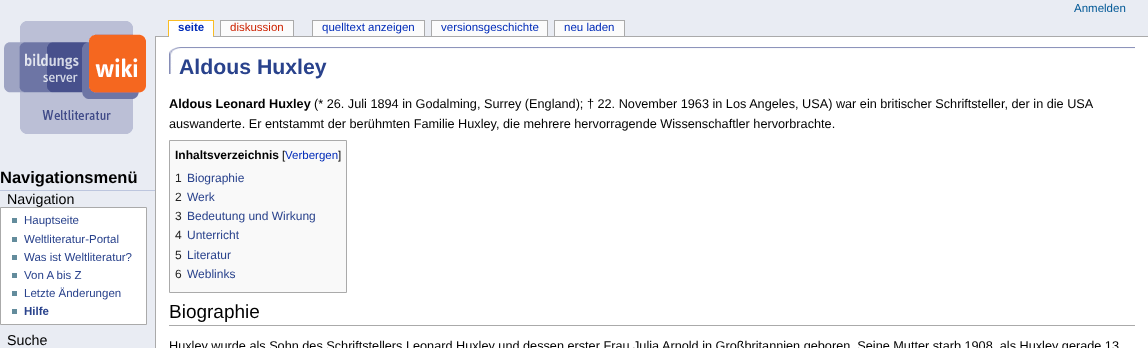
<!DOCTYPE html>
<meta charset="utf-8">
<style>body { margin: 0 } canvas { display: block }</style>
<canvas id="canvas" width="1148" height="348"></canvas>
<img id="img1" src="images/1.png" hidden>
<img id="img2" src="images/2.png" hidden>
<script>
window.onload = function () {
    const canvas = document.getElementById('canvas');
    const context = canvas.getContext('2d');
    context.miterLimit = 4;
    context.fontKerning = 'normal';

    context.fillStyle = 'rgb(233, 236, 243)';
    context.fillRect(0, 0, 1148, 348);
    context.drawImage(document.getElementById('img1'), 4, 21, 142, 113);
    context.fillStyle = 'rgb(250, 189, 35)';
    context.fillRect(168, 20, 46, 1);
    context.fillRect(213, 20, 1, 16);
    context.fillRect(168, 20, 1, 16);
    context.fillStyle = 'rgb(170, 170, 170)';
    context.fillRect(155, 36, 993, 1);
    context.fillStyle = 'rgb(255, 255, 255)';
    context.fillRect(169, 21, 44, 16);
    context.fillStyle = 'rgb(170, 170, 170)';
    context.fillRect(220, 20, 74, 1);
    context.fillRect(293, 20, 1, 16);
    context.fillRect(220, 20, 1, 16);
    context.fillStyle = 'rgb(251, 251, 251)';
    context.fillRect(221, 21, 72, 15);
    context.fillStyle = 'rgb(170, 170, 170)';
    context.fillRect(312, 20, 113, 1);
    context.fillRect(424, 20, 1, 16);
    context.fillRect(312, 20, 1, 16);
    context.fillStyle = 'rgb(251, 251, 251)';
    context.fillRect(313, 21, 111, 15);
    context.fillStyle = 'rgb(170, 170, 170)';
    context.fillRect(431, 20, 117, 1);
    context.fillRect(547, 20, 1, 16);
    context.fillRect(431, 20, 1, 16);
    context.fillStyle = 'rgb(251, 251, 251)';
    context.fillRect(432, 21, 115, 15);
    context.fillStyle = 'rgb(170, 170, 170)';
    context.fillRect(554, 20, 71, 1);
    context.fillRect(624, 20, 1, 16);
    context.fillRect(554, 20, 1, 16);
    context.fillStyle = 'rgb(251, 251, 251)';
    context.fillRect(555, 21, 69, 15);
    context.fillStyle = 'rgb(189, 198, 222)';
    context.fillRect(0, 190, 155, 1);
    context.fillStyle = 'rgb(255, 255, 255)';
    context.beginPath();
    context.rect(0.5, 207.5, 146, 117);
    context.fill();
    context.strokeStyle = 'rgb(170, 170, 170)';
    context.stroke();
    context.fillStyle = 'rgb(99, 140, 156)';
    context.fillRect(12, 218, 5, 5);
    context.fillRect(12, 237, 5, 5);
    context.fillRect(12, 255, 5, 5);
    context.fillRect(12, 273, 5, 5);
    context.fillRect(12, 291, 5, 5);
    context.fillRect(12, 309, 5, 5);
    context.fillStyle = 'rgb(255, 255, 255)';
    context.fillRect(156, 37, 992, 311);
    context.fillStyle = 'rgb(170, 170, 170)';
    context.fillRect(155, 36, 1, 312);
    context.drawImage(document.getElementById('img2'), 169, 47, 966, 27);
    context.fillStyle = 'rgb(249, 249, 249)';
    context.beginPath();
    context.rect(169.5, 140.5, 177, 152);
    context.fill();
    context.stroke();
    context.fillStyle = 'rgb(170, 170, 170)';
    context.fillRect(169, 325, 966, 1);
    context.font = '11.5px Liberation Sans';
    context.fillStyle = 'rgb(0, 88, 150)';
    context.fillText('Anmelden', 1074, 12);
    context.font = 'bold 11.5px Liberation Sans';
    context.fillStyle = 'rgb(0, 43, 184)';
    context.fillText('seite', 178, 31);
    context.font = '11.5px Liberation Sans';
    context.fillStyle = 'rgb(204, 34, 0)';
    context.fillText('diskussion', 230, 31);
    context.fillStyle = 'rgb(0, 43, 184)';
    context.fillText('quelltext anzeigen', 322, 31);
    context.fillText('versionsgeschichte', 441, 31);
    context.fillText('neu laden', 564, 31);
    context.font = 'bold 16.5px Liberation Sans';
    context.fillStyle = 'rgb(0, 0, 0)';
    context.fillText('Navigationsmenü', 0, 183);
    context.font = '14.25px Liberation Sans';
    context.fillText('Navigation', 7, 204);
    context.font = '11.5px Liberation Sans';
    context.fillStyle = 'rgb(41, 66, 140)';
    context.fillText('Hauptseite', 24, 224);
    context.fillText('Weltliteratur-Portal', 24, 243);
    context.fillText('Was ist Weltliteratur?', 24, 261);
    context.fillText('Von A bis Z', 24, 279);
    context.fillText('Letzte Änderungen', 24, 297);
    context.font = 'bold 11.5px Liberation Sans';
    context.fillText('Hilfe', 24, 315);
    context.font = '14.25px Liberation Sans';
    context.fillStyle = 'rgb(0, 0, 0)';
    context.fillText('Suche', 7, 345);
    context.font = 'bold 21.25px Liberation Sans';
    context.fillStyle = 'rgb(41, 66, 140)';
    context.fillText('Aldous Huxley', 179, 74);
    context.font = 'bold 12.7px Liberation Sans';
    context.fillStyle = 'rgb(0, 0, 0)';
    context.fillText('Aldous Leonard Huxley', 169, 108);
    context.font = '12.7px Liberation Sans';
    context.fillText('(* 26. Juli 1894 in Godalming, Surrey (England); † 22. November 1963 in Los Angeles, USA) war ein britischer Schriftsteller, der in die USA', 314, 108);
    context.fillText('auswanderte. Er entstammt der berühmten Familie Huxley, die mehrere hervorragende Wissenschaftler hervorbrachte.', 169, 128);
    context.font = 'bold 12px Liberation Sans';
    context.fillText('Inhaltsverzeichnis', 175, 159);
    context.font = '11.5px Liberation Sans';
    context.fillText('[', 282, 159);
    context.fillStyle = 'rgb(0, 43, 184)';
    context.fillText('Verbergen', 285, 159);
    context.fillStyle = 'rgb(0, 0, 0)';
    context.fillText(']', 338, 159);
    context.font = '12px Liberation Sans';
    context.fillStyle = 'rgb(34, 34, 34)';
    context.fillText('1', 175, 182);
    context.fillStyle = 'rgb(41, 66, 140)';
    context.fillText('Biographie', 187, 182);
    context.fillStyle = 'rgb(34, 34, 34)';
    context.fillText('2', 175, 201);
    context.fillStyle = 'rgb(41, 66, 140)';
    context.fillText('Werk', 187, 201);
    context.fillStyle = 'rgb(34, 34, 34)';
    context.fillText('3', 175, 220);
    context.fillStyle = 'rgb(41, 66, 140)';
    context.fillText('Bedeutung und Wirkung', 187, 220);
    context.fillStyle = 'rgb(34, 34, 34)';
    context.fillText('4', 175, 239);
    context.fillStyle = 'rgb(41, 66, 140)';
    context.fillText('Unterricht', 187, 239);
    context.fillStyle = 'rgb(34, 34, 34)';
    context.fillText('5', 175, 259);
    context.fillStyle = 'rgb(41, 66, 140)';
    context.fillText('Literatur', 187, 259);
    context.fillStyle = 'rgb(34, 34, 34)';
    context.fillText('6', 175, 278);
    context.fillStyle = 'rgb(41, 66, 140)';
    context.fillText('Weblinks', 187, 278);
    context.font = '19px Liberation Sans';
    context.fillStyle = 'rgb(0, 0, 0)';
    context.fillText('Biographie', 169, 318);
    context.font = '12.7px Liberation Sans';
    context.fillText('Huxley wurde als Sohn des Schriftstellers Leonard Huxley und dessen erster Frau Julia Arnold in Großbritannien geboren. Seine Mutter starb 1908, als Huxley gerade 13', 169, 350);
};
</script>
